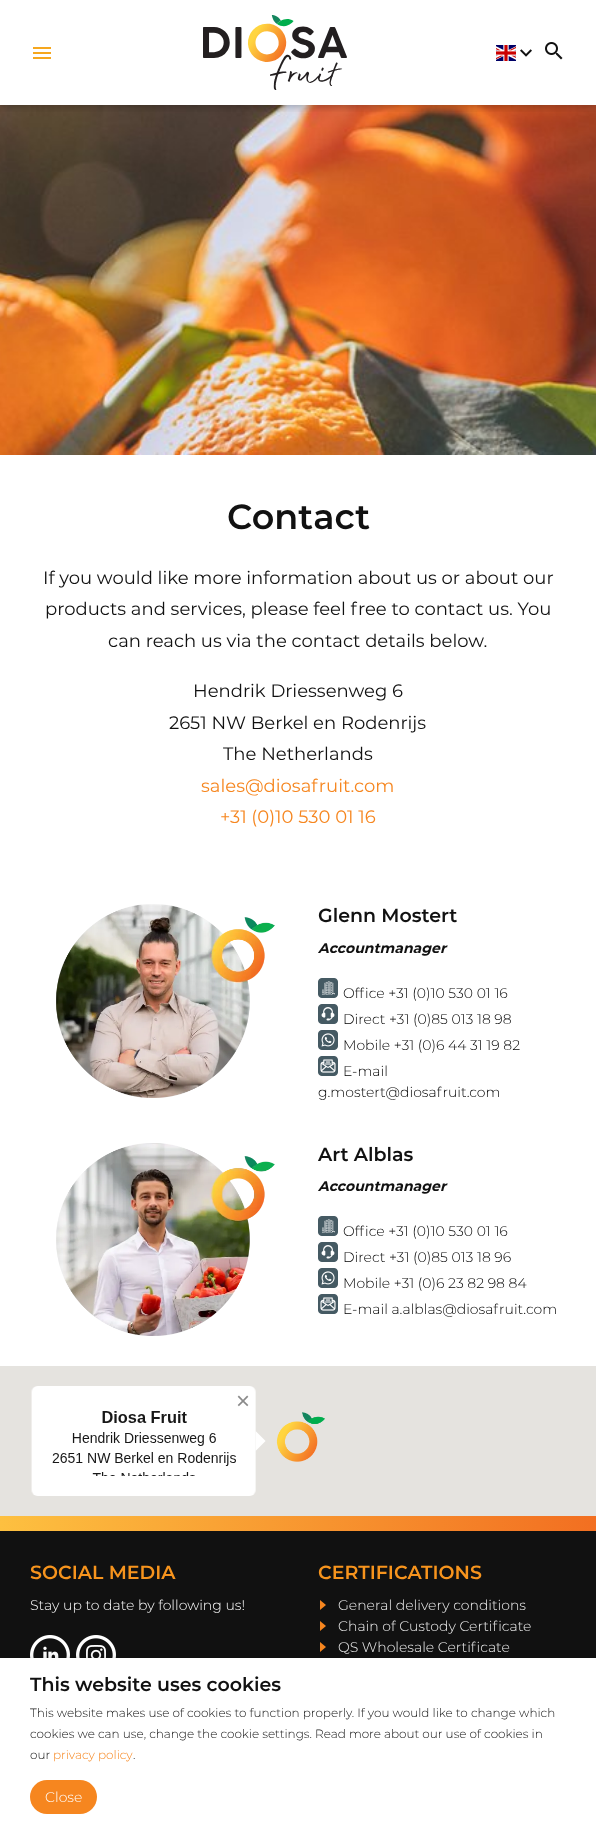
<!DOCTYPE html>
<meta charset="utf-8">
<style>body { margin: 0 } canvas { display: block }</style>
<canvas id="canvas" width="596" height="1829"></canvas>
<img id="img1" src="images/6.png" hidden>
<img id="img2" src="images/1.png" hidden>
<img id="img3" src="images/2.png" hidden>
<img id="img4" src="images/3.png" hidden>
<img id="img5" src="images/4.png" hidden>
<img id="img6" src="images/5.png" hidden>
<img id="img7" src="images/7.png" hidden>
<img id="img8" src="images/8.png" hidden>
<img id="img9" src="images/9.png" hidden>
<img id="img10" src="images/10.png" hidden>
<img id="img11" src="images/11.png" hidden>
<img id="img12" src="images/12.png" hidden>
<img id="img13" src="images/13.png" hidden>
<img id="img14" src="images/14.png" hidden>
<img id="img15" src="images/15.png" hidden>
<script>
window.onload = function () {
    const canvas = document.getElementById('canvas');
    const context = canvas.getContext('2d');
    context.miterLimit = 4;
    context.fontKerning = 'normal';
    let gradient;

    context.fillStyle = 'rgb(255, 255, 255)';
    context.fillRect(0, 0, 596, 1829);
    context.drawImage(document.getElementById('img1'), 0, 105, 596, 350);
    context.save();
    context.beginPath();
    context.rect(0, 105, 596, 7);
    context.clip();
    context.fillStyle = 'rgba(0, 0, 0, 0.3)';
    context.filter = 'blur(4px)';
    context.beginPath();
    context.rect(0, 1, 596, 105);
    context.fill();
    context.filter = 'none';
    context.restore();
    context.drawImage(document.getElementById('img2'), 33, 47, 18, 12);
    context.drawImage(document.getElementById('img3'), 203, 15, 144, 75);
    context.drawImage(document.getElementById('img4'), 496, 45, 20, 16);
    context.drawImage(document.getElementById('img5'), 520, 49, 12, 8);
    context.drawImage(document.getElementById('img6'), 545, 42, 18, 18);
    context.drawImage(document.getElementById('img7'), 56, 904, 219, 194);
    context.drawImage(document.getElementById('img8'), 318, 978, 20, 20);
    context.drawImage(document.getElementById('img9'), 318, 1004, 20, 20);
    context.drawImage(document.getElementById('img10'), 318, 1030, 20, 20);
    context.drawImage(document.getElementById('img11'), 318, 1056, 20, 20);
    context.drawImage(document.getElementById('img12'), 56, 1143, 219, 193);
    context.drawImage(document.getElementById('img8'), 318, 1216, 20, 20);
    context.drawImage(document.getElementById('img9'), 318, 1242, 20, 20);
    context.drawImage(document.getElementById('img10'), 318, 1268, 20, 20);
    context.drawImage(document.getElementById('img11'), 318, 1294, 20, 20);
    context.drawImage(document.getElementById('img13'), 0, 1366, 596, 150);
    gradient = context.createLinearGradient(0, 1524, 596, 1524);
    gradient.addColorStop(0, 'rgb(253, 192, 64)');
    gradient.addColorStop(1, 'rgb(242, 111, 33)');
    context.fillStyle = gradient;
    context.fillRect(0, 1516, 596, 15);
    context.fillStyle = 'rgb(17, 17, 17)';
    context.fillRect(0, 1531, 596, 127);
    context.drawImage(document.getElementById('img14'), 30, 1635, 40, 23);
    context.drawImage(document.getElementById('img15'), 76, 1635, 40, 23);
    context.fillStyle = 'rgb(246, 134, 31)';
    context.beginPath();
    context.moveTo(320, 1610);
    context.lineTo(320, 1600);
    context.lineTo(326, 1605);
    context.closePath();
    context.fill();
    context.beginPath();
    context.moveTo(320, 1631);
    context.lineTo(320, 1621);
    context.lineTo(326, 1626);
    context.closePath();
    context.fill();
    context.beginPath();
    context.moveTo(320, 1652);
    context.lineTo(320, 1642);
    context.lineTo(326, 1647);
    context.closePath();
    context.fill();
    context.fillStyle = 'rgba(0, 0, 0, 0.2)';
    context.filter = 'blur(4px)';
    context.beginPath();
    context.rect(0, 1659, 596, 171);
    context.fill();
    context.filter = 'none';
    context.fillStyle = 'rgb(255, 255, 255)';
    context.fillRect(0, 1658, 596, 171);
    context.fillStyle = 'rgb(246, 134, 31)';
    context.beginPath();
    context.roundRect(30, 1780, 67, 34, 17);
    context.fill();
    context.font = '600 35px Montserrat';
    context.fillStyle = 'rgb(17, 17, 17)';
    context.fillText('Contact', 227, 529);
    context.font = '18px Montserrat';
    context.fillText('If you would like more information about us or about our', 43, 584);
    context.fillText('products and services, please feel free to contact us. You', 45, 615);
    context.fillText('can reach us via the contact details below.', 108, 647);
    context.fillText('Hendrik Driessenweg 6', 193, 697);
    context.fillText('2651 NW Berkel en Rodenrijs', 169, 729);
    context.fillText('The Netherlands', 223, 760);
    context.fillStyle = 'rgb(246, 134, 31)';
    context.fillText('sales@diosafruit.com', 201, 792);
    context.fillText('+31 (0)10 530 01 16', 220, 823);
    context.font = '600 19px Montserrat';
    context.fillStyle = 'rgb(17, 17, 17)';
    context.fillText('Glenn Mostert', 318, 922);
    context.font = 'italic bold 14px Montserrat';
    context.fillText('Accountmanager', 318, 953);
    context.font = '300 14px Montserrat';
    context.fillStyle = 'rgb(0, 0, 0)';
    context.fillText('Office +31 (0)10 530 01 16', 343, 998);
    context.fillText('Direct +31 (0)85 013 18 98', 343, 1024);
    context.fillText('Mobile +31 (0)6 44 31 19 82', 343, 1050);
    context.fillText('E-mail', 343, 1076);
    context.fillText('g.mostert@diosafruit.com', 318, 1097);
    context.font = '600 19px Montserrat';
    context.fillStyle = 'rgb(17, 17, 17)';
    context.fillText('Art Alblas', 318, 1161);
    context.font = 'italic bold 14px Montserrat';
    context.fillText('Accountmanager', 318, 1191);
    context.font = '300 14px Montserrat';
    context.fillStyle = 'rgb(0, 0, 0)';
    context.fillText('Office +31 (0)10 530 01 16', 343, 1236);
    context.fillText('Direct +31 (0)85 013 18 96', 343, 1262);
    context.fillText('Mobile +31 (0)6 23 82 98 84', 343, 1288);
    context.fillText('E-mail a.alblas@diosafruit.com', 343, 1314);
    context.font = '600 19px Montserrat';
    context.fillStyle = 'rgb(247, 148, 29)';
    context.fillText('SOCIAL MEDIA', 30, 1579);
    context.font = '300 14px Montserrat';
    context.fillStyle = 'rgb(255, 255, 255)';
    context.fillText('Stay up to date by following us!', 30, 1610);
    context.font = '600 19px Montserrat';
    context.fillStyle = 'rgb(247, 148, 29)';
    context.fillText('CERTIFICATIONS', 318, 1579);
    context.font = '300 14px Montserrat';
    context.fillStyle = 'rgb(239, 239, 239)';
    context.fillText('General delivery conditions', 338, 1610);
    context.fillText('Chain of Custody Certificate', 338, 1631);
    context.fillText('QS Wholesale Certificate', 338, 1652);
    context.font = '600 19px Montserrat';
    context.fillStyle = 'rgb(17, 17, 17)';
    context.fillText('This website uses cookies', 30, 1691);
    context.font = '300 12px Montserrat';
    context.fillText('This website makes use of cookies to function properly. If you would like to change which', 30, 1717);
    context.fillText('cookies we can use, change the cookie settings. Read more about our use of cookies in', 30, 1738);
    context.fillText('our', 30, 1759);
    context.fillStyle = 'rgb(246, 134, 31)';
    context.fillText('privacy policy', 53, 1759);
    context.fillStyle = 'rgb(17, 17, 17)';
    context.fillText('.', 133, 1759);
    context.font = '300 14px Montserrat';
    context.fillStyle = 'rgb(255, 255, 255)';
    context.fillText('Close', 45, 1802);
};
</script>
